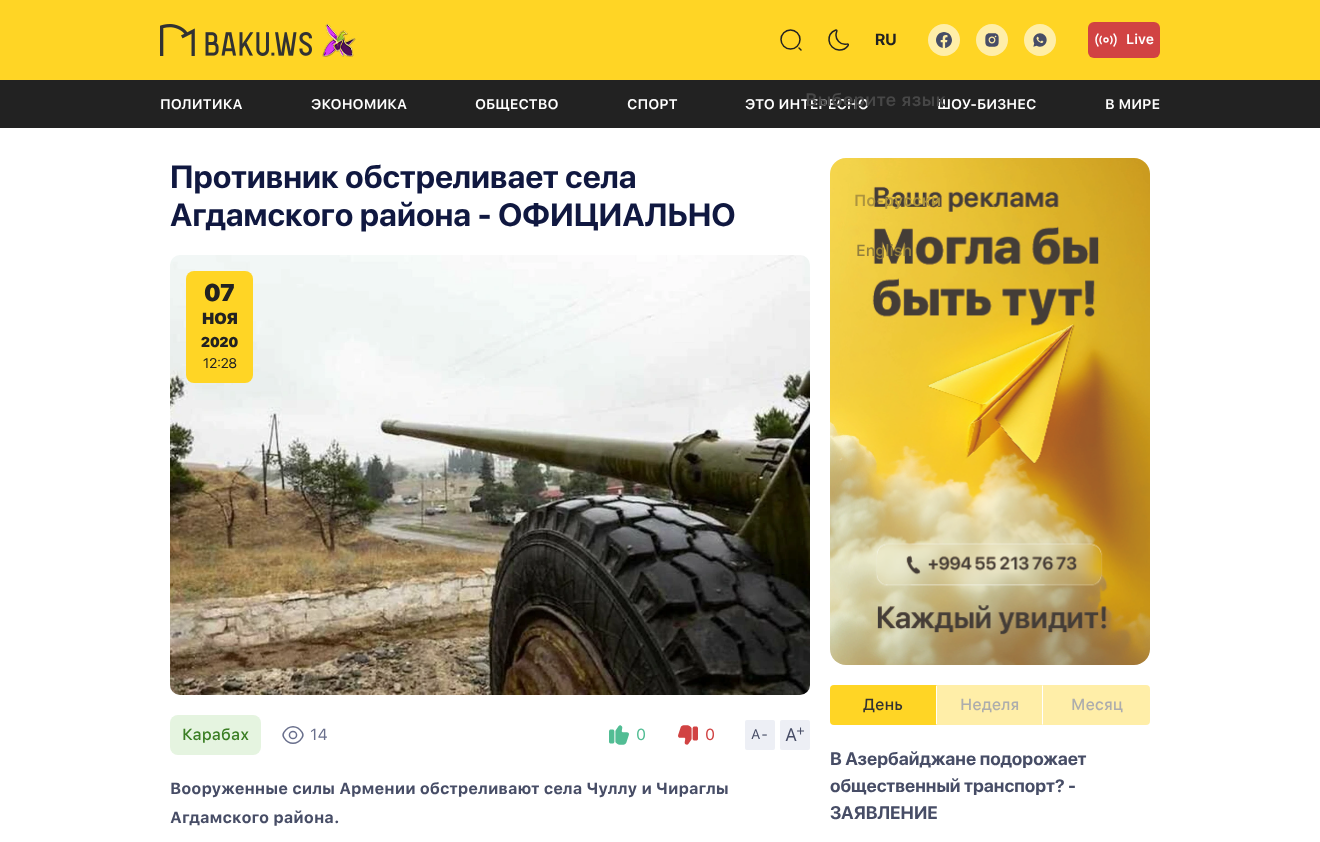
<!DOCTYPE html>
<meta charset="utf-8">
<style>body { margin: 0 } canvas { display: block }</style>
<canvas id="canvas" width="1320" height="842"></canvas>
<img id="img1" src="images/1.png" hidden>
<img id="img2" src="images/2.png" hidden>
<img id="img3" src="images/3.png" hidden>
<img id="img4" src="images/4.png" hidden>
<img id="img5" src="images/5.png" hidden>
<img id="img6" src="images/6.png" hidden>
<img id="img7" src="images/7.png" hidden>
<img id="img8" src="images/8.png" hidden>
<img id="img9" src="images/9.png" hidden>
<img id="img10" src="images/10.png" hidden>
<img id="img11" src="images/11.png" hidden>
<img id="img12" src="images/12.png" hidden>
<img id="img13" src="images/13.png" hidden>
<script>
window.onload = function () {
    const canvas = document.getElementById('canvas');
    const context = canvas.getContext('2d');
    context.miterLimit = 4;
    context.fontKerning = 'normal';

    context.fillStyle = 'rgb(255, 255, 255)';
    context.fillRect(0, 0, 1320, 842);
    context.fillStyle = 'rgb(255, 213, 37)';
    context.fillRect(0, 0, 1320, 80);
    context.drawImage(document.getElementById('img1'), 160, 24, 152, 32);
    context.drawImage(document.getElementById('img2'), 322, 23, 34, 34);
    context.drawImage(document.getElementById('img3'), 780, 29, 22, 22);
    context.drawImage(document.getElementById('img4'), 828, 29, 21, 22);
    context.fillStyle = 'rgb(255, 238, 168)';
    context.beginPath();
    context.arc(944, 40, 16, 0, 2 * Math.PI);
    context.fill();
    context.drawImage(document.getElementById('img5'), 936, 32, 16, 16);
    context.beginPath();
    context.arc(992, 40, 16, 0, 2 * Math.PI);
    context.fill();
    context.drawImage(document.getElementById('img6'), 985, 33, 14, 14);
    context.beginPath();
    context.arc(1040, 40, 16, 0, 2 * Math.PI);
    context.fill();
    context.drawImage(document.getElementById('img7'), 1033, 33, 14, 14);
    context.fillStyle = 'rgb(209, 67, 67)';
    context.beginPath();
    context.roundRect(1088, 22, 72, 36, 6);
    context.fill();
    context.drawImage(document.getElementById('img8'), 1095, 33, 22, 14);
    context.fillStyle = 'rgb(34, 34, 34)';
    context.fillRect(0, 80, 1320, 48);
    context.drawImage(document.getElementById('img9'), 170, 255, 640, 440);
    context.fillStyle = 'rgb(255, 213, 37)';
    context.beginPath();
    context.roundRect(186, 271, 67, 112, 8);
    context.fill();
    context.fillStyle = 'rgb(229, 244, 224)';
    context.beginPath();
    context.roundRect(170, 715, 91, 40, 8);
    context.fill();
    context.drawImage(document.getElementById('img10'), 282, 726, 22, 18);
    context.drawImage(document.getElementById('img11'), 609, 725, 20, 20);
    context.drawImage(document.getElementById('img12'), 678, 725, 20, 20);
    context.fillStyle = 'rgb(237, 239, 245)';
    context.beginPath();
    context.roundRect(745, 720, 30, 30, 2);
    context.fill();
    context.beginPath();
    context.roundRect(780, 720, 30, 30, 2);
    context.fill();
    context.drawImage(document.getElementById('img13'), 830, 158, 320, 507);
    context.fillStyle = 'rgb(255, 213, 37)';
    context.beginPath();
    context.roundRect(830, 685, 107, 40, [4, 0, 0, 4]);
    context.fill();
    context.fillStyle = 'rgb(255, 255, 255)';
    context.beginPath();
    context.moveTo(937, 685);
    context.lineTo(936, 686);
    context.lineTo(936, 724);
    context.lineTo(937, 725);
    context.closePath();
    context.fill();
    context.fillStyle = 'rgb(255, 238, 168)';
    context.fillRect(937, 685, 106, 40);
    context.fillStyle = 'rgb(255, 255, 255)';
    context.beginPath();
    context.moveTo(1043, 685);
    context.lineTo(1043, 725);
    context.lineTo(1042, 724);
    context.lineTo(1042, 686);
    context.closePath();
    context.fill();
    context.fillStyle = 'rgb(255, 238, 168)';
    context.beginPath();
    context.roundRect(1043, 685, 107, 40, [0, 4, 4, 0]);
    context.fill();
    context.font = 'bold 16px SF Pro Display';
    context.fillStyle = 'rgb(34, 34, 34)';
    context.fillText('RU', 875, 45);
    context.font = '600 16px SF Pro Text';
    context.fillStyle = 'rgb(173, 148, 63)';
    context.fillText('По-русски', 854, 206);
    context.font = '500 16px SF Pro Text';
    context.fillStyle = 'rgb(147, 127, 61)';
    context.fillText('English', 856, 256);
    context.font = '600 14px SF Pro Text';
    context.fillStyle = 'rgb(255, 255, 255)';
    context.fillText('Live', 1126, 44);
    context.fillText('ПОЛИТИКА', 160, 109);
    context.fillText('ЭКОНОМИКА', 311, 109);
    context.fillText('ОБЩЕСТВО', 475, 109);
    context.fillText('СПОРТ', 627, 109);
    context.fillText('ЭТО ИНТЕРЕСНО', 745, 109);
    context.fillText('ШОУ-БИЗНЕС', 937, 109);
    context.font = '600 18px SF Pro Text';
    context.fillStyle = 'rgb(71, 71, 71)';
    context.fillText('Выберите язык', 805, 106);
    context.font = '600 14px SF Pro Text';
    context.fillStyle = 'rgb(255, 255, 255)';
    context.fillText('В МИРЕ', 1105, 109);
    context.font = 'bold 32px SF Pro Display';
    context.fillStyle = 'rgb(16, 24, 64)';
    context.fillText('Противник обстреливает села', 170, 188);
    context.fillText('Агдамского района - ОФИЦИАЛЬНО', 170, 226);
    context.font = '900 24px SF Pro Display';
    context.fillStyle = 'rgb(34, 34, 34)';
    context.fillText('07', 204, 301);
    context.font = '900 16px SF Pro Display';
    context.fillText('НОЯ', 202, 324);
    context.font = '900 14px SF Pro Display';
    context.fillText('2020', 201, 347);
    context.font = '14px SF Pro Display';
    context.fillText('12:28', 203, 368);
    context.font = '500 16px SF Pro Text';
    context.fillStyle = 'rgb(59, 126, 36)';
    context.fillText('Карабах', 182, 740);
    context.font = '16px SF Pro Text';
    context.fillStyle = 'rgb(105, 111, 140)';
    context.fillText('14', 310, 740);
    context.fillStyle = 'rgb(82, 189, 148)';
    context.fillText('0', 636, 740);
    context.fillStyle = 'rgb(209, 67, 67)';
    context.fillText('0', 705, 740);
    context.letterSpacing = '1px';
    context.font = '14px SF Pro Text';
    context.fillStyle = 'rgb(71, 77, 102)';
    context.fillText('A-', 751, 739);
    context.font = '18px SF Pro Text';
    context.fillText('A', 785, 741);
    context.font = '14px SF Pro Text';
    context.fillText('+', 796, 735);
    context.letterSpacing = '0px';
    context.font = 'bold 16px SF Pro Text';
    context.fillText('Вооруженные силы Армении обстреливают села Чуллу и Чираглы', 170, 794);
    context.fillText('Агдамского района.', 170, 823);
    context.font = '500 16px SF Pro Text';
    context.fillStyle = 'rgb(50, 50, 50)';
    context.fillText('День', 863, 710);
    context.fillStyle = 'rgb(173, 173, 173)';
    context.fillText('Неделя', 960, 710);
    context.fillText('Месяц', 1071, 710);
    context.font = 'bold 18px SF Pro Display';
    context.fillStyle = 'rgb(71, 77, 102)';
    context.fillText('В Азербайджане подорожает', 830, 765);
    context.fillText('общественный транспорт? -', 830, 792);
    context.fillText('ЗАЯВЛЕНИЕ', 830, 819);
};
</script>
